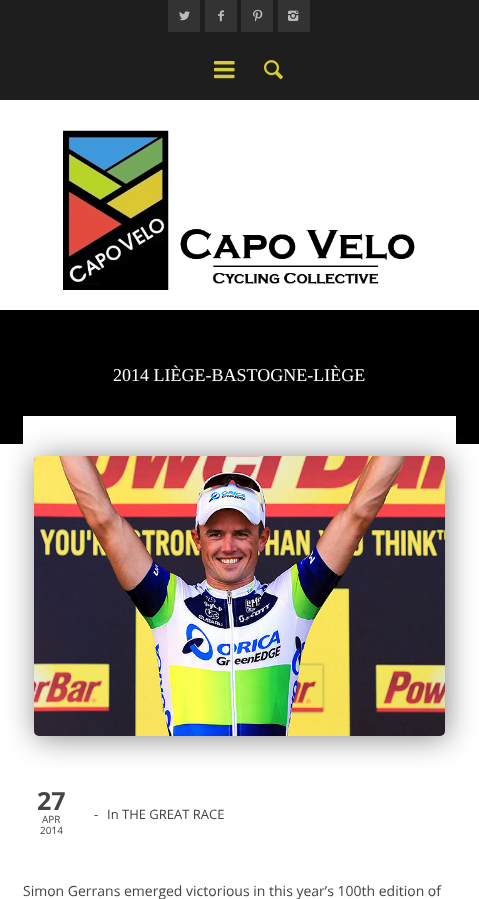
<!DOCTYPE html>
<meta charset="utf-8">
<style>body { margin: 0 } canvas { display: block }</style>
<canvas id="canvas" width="479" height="899"></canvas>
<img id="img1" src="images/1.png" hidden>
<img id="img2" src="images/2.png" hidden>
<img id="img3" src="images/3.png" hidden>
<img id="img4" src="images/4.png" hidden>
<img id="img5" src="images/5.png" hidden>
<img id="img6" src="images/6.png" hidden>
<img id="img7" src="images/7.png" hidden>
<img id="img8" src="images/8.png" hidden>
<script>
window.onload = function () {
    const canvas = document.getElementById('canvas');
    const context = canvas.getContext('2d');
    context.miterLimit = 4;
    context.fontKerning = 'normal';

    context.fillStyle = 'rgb(255, 255, 255)';
    context.fillRect(0, 0, 479, 899);
    context.fillStyle = 'rgb(30, 30, 30)';
    context.fillRect(0, 0, 479, 100);
    context.fillStyle = 'rgb(51, 51, 51)';
    context.fillRect(168, 0, 32, 32);
    context.drawImage(document.getElementById('img1'), 179, 11, 11, 10);
    context.fillRect(205, 0, 32, 32);
    context.drawImage(document.getElementById('img2'), 218, 10, 6, 12);
    context.fillRect(241, 0, 32, 32);
    context.drawImage(document.getElementById('img3'), 253, 9, 10, 13);
    context.fillRect(278, 0, 32, 32);
    context.drawImage(document.getElementById('img4'), 288, 10, 11, 11);
    context.drawImage(document.getElementById('img5'), 213, 61, 22, 18);
    context.drawImage(document.getElementById('img6'), 264, 60, 19, 20);
    context.drawImage(document.getElementById('img7'), 63, 130, 352, 160);
    context.fillStyle = 'rgb(0, 0, 0)';
    context.fillRect(0, 310, 479, 134);
    context.fillStyle = 'rgb(255, 255, 255)';
    context.fillRect(23, 416, 433, 28);
    context.fillStyle = 'rgb(136, 136, 136)';
    context.filter = 'blur(15px)';
    context.beginPath();
    context.roundRect(36, 458, 411, 280, 5);
    context.fill();
    context.filter = 'none';
    context.drawImage(document.getElementById('img8'), 34, 456, 411, 280);
    context.font = '18px Liberation Serif';
    context.fillStyle = 'rgb(255, 255, 255)';
    context.fillText('2014 LIÈGE-BASTOGNE-LIÈGE', 113, 381);
    context.font = 'bold 25px Open Sans';
    context.fillStyle = 'rgb(68, 68, 68)';
    context.fillText('27', 37, 810);
    context.font = '10px Open Sans';
    context.fillText('APR', 42, 823);
    context.fillText('2014', 40, 834);
    context.font = '13px Open Sans';
    context.fillText('-', 94, 819);
    context.fillText('In THE GREAT RACE', 107, 819);
    context.font = '14px Open Sans';
    context.fillText('Simon Gerrans emerged victorious in this year’s 100th edition of', 23, 896);
};
</script>
